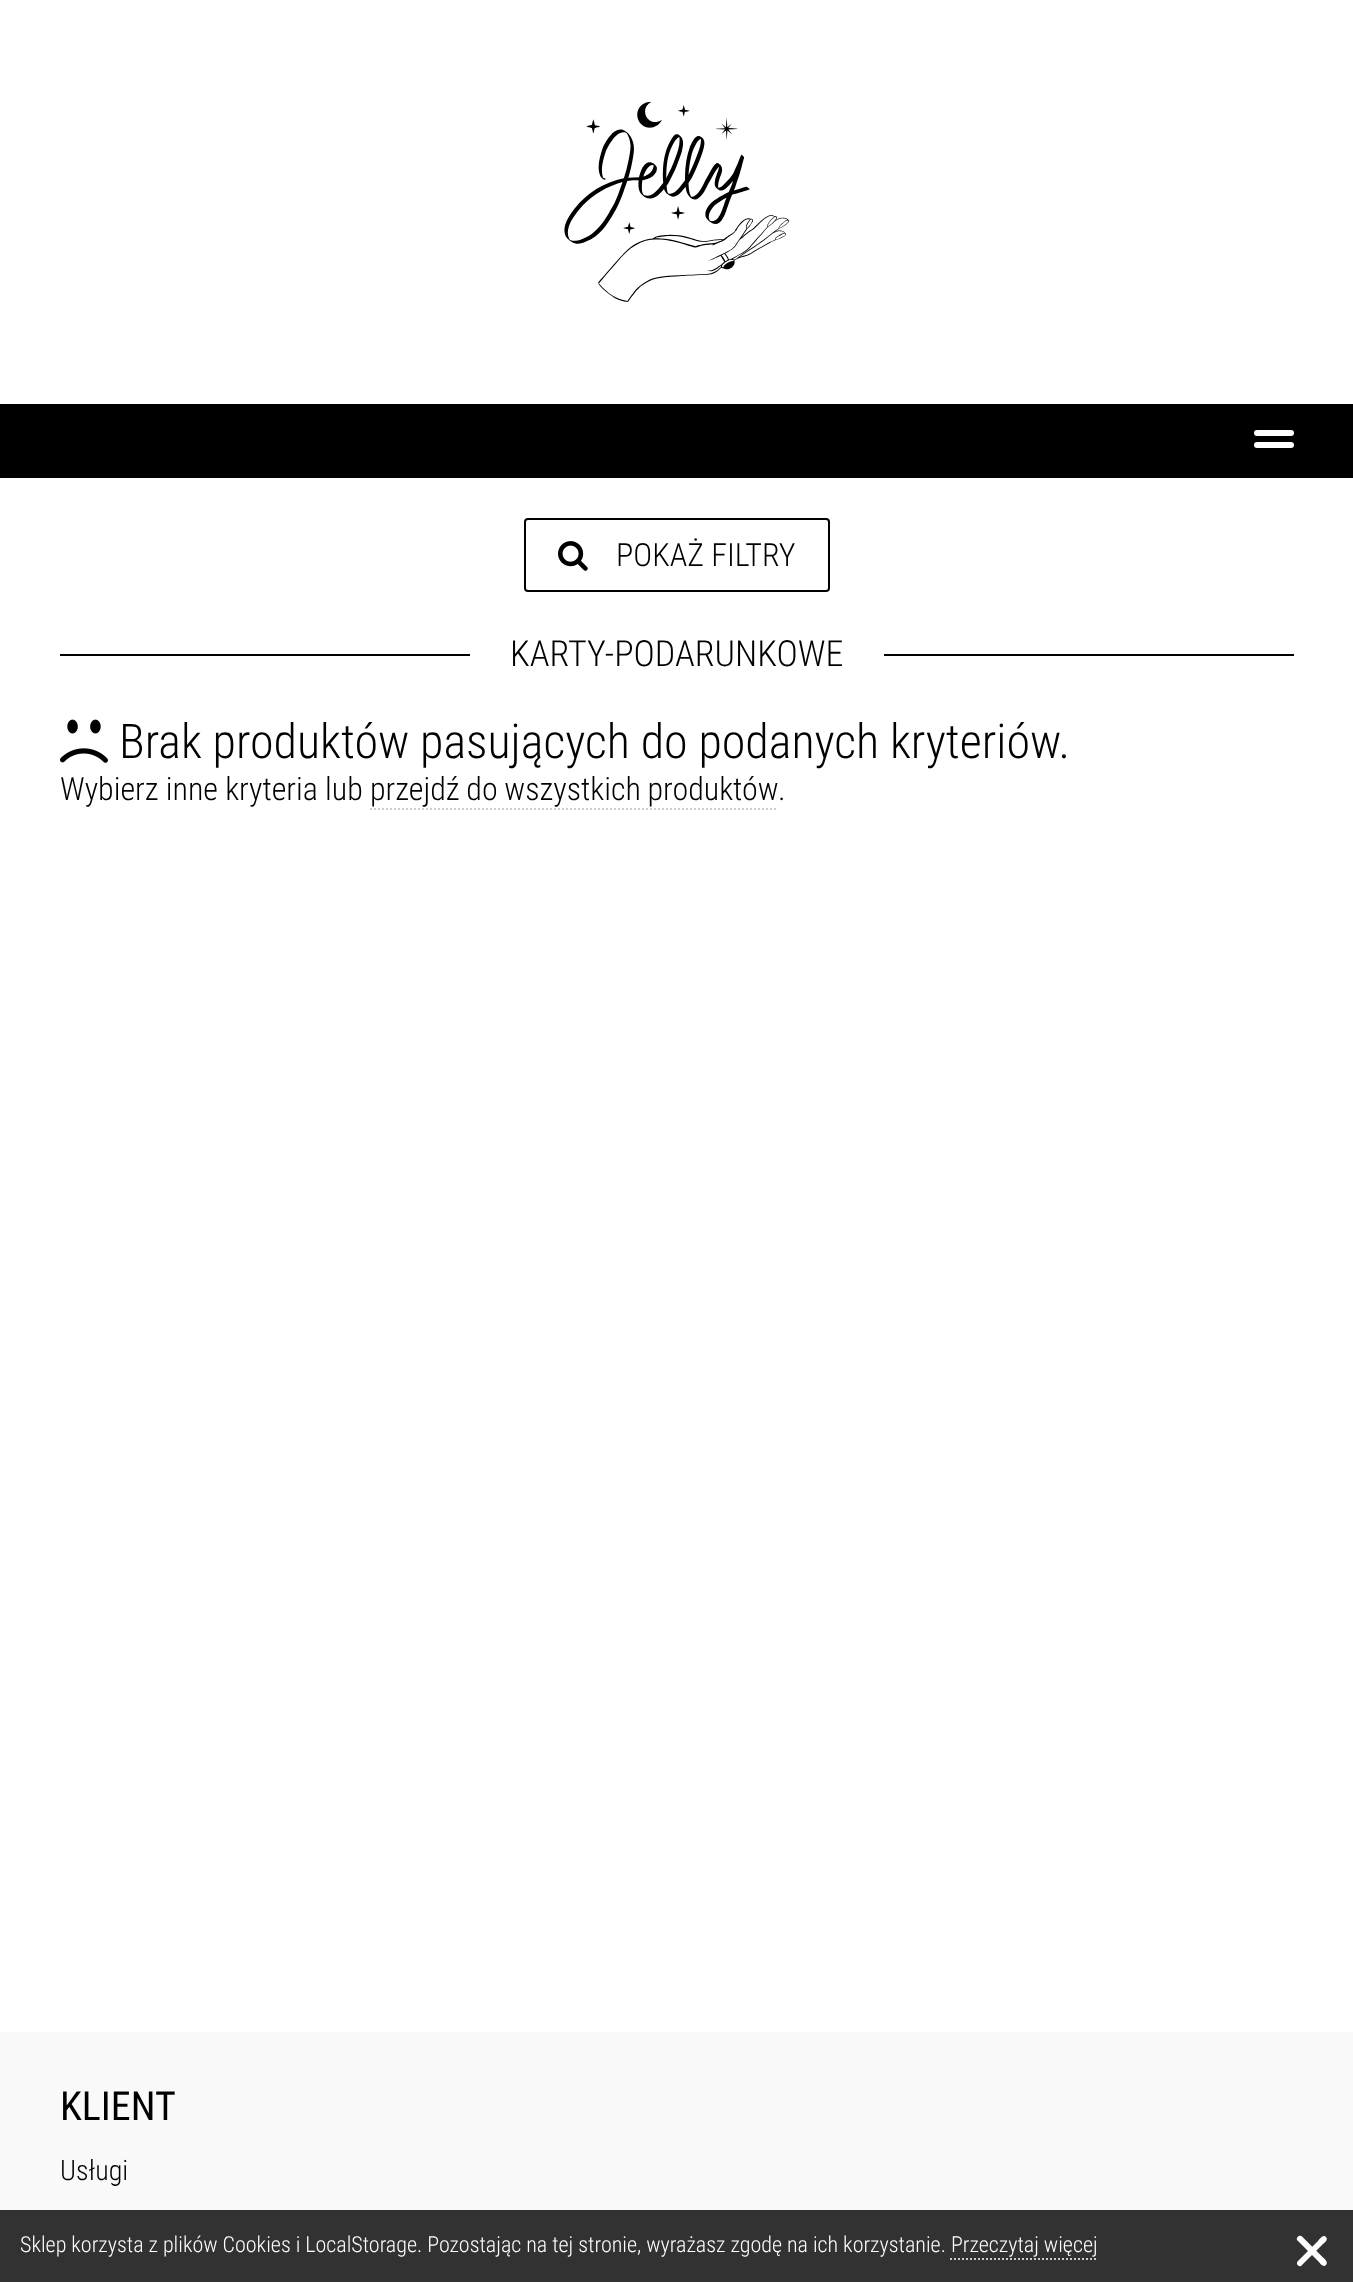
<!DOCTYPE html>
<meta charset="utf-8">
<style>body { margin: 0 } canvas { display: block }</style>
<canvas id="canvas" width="1353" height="2282"></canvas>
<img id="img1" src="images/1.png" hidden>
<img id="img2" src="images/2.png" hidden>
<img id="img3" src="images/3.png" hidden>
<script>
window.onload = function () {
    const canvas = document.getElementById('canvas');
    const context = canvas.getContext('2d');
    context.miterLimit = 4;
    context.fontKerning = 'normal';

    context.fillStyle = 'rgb(255, 255, 255)';
    context.fillRect(0, 0, 1353, 2282);
    context.drawImage(document.getElementById('img1'), 564, 102, 226, 200);
    context.fillStyle = 'rgb(0, 0, 0)';
    context.fillRect(0, 404, 1353, 74);
    context.fillStyle = 'rgb(255, 255, 255)';
    context.beginPath();
    context.roundRect(1254, 430, 40, 6, 3);
    context.fill();
    context.beginPath();
    context.roundRect(1254, 442, 40, 6, 3);
    context.fill();
    context.beginPath();
    context.roundRect(525, 519, 304, 72, 3);
    context.strokeStyle = 'rgb(0, 0, 0)';
    context.lineWidth = 2;
    context.stroke();
    context.drawImage(document.getElementById('img2'), 558, 541, 30, 30);
    context.fillStyle = 'rgb(0, 0, 0)';
    context.fillRect(60, 654, 1234, 2);
    context.fillStyle = 'rgb(255, 255, 255)';
    context.fillRect(470, 654, 414, 2);
    context.drawImage(document.getElementById('img3'), 60, 719, 48, 44);
    context.beginPath();
    context.moveTo(370, 809);
    context.lineTo(778, 809);
    context.strokeStyle = 'rgb(204, 204, 204)';
    context.setLineDash([2, 2]);
    context.stroke();
    context.fillStyle = 'rgb(249, 249, 249)';
    context.fillRect(0, 2032, 1353, 250);
    context.fillStyle = 'rgba(0, 0, 0, 0.8)';
    context.fillRect(0, 2210, 1353, 72);
    context.beginPath();
    context.moveTo(950, 2259);
    context.lineTo(1098, 2259);
    context.stroke();
    context.fillStyle = 'rgb(255, 255, 255)';
    context.beginPath();
    context.moveTo(1302, 2236.5);
    context.lineTo(1322, 2256.5);
    context.bezierCurveTo(1323.5, 2258, 1329, 2262, 1326, 2265);
    context.bezierCurveTo(1323, 2268, 1319.5, 2262.5, 1318, 2261);
    context.lineTo(1297, 2240);
    context.bezierCurveTo(1296, 2237, 1300, 2234.5, 1302, 2236.5);
    context.closePath();
    context.fill();
    context.beginPath();
    context.moveTo(1298, 2261);
    context.lineTo(1318, 2241);
    context.bezierCurveTo(1319.5, 2239.5, 1323, 2234, 1326, 2237);
    context.bezierCurveTo(1329, 2240, 1323.5, 2243.5, 1322, 2245);
    context.lineTo(1301, 2266);
    context.bezierCurveTo(1298, 2267, 1295.5, 2263.5, 1298, 2261);
    context.closePath();
    context.fill();
    context.font = '300 32px Roboto Condensed';
    context.fillStyle = 'rgb(0, 0, 0)';
    context.fillText('POKAŻ FILTRY', 616, 566);
    context.font = '300 36px Roboto Condensed';
    context.fillText('KARTY-PODARUNKOWE', 510, 666);
    context.font = '300 48px Roboto Condensed';
    context.fillText('Brak produktów pasujących do podanych kryteriów.', 119, 758);
    context.font = '300 32px Roboto Condensed';
    context.fillText('Wybierz inne kryteria lub', 60, 800);
    context.wordSpacing = '-0.5px';
    context.fillText('przejdź do wszystkich produktów', 370, 800);
    context.wordSpacing = '0px';
    context.fillText('.', 778, 800);
    context.font = '40px Roboto Condensed';
    context.fillText('KLIENT', 60, 2120);
    context.font = '300 28px Roboto Condensed';
    context.fillText('Usługi', 60, 2180);
    context.font = '300 22px Roboto Condensed';
    context.fillStyle = 'rgb(255, 255, 255)';
    context.fillText('Sklep korzysta z plików Cookies i LocalStorage. Pozostając na tej stronie, wyrażasz zgodę na ich korzystanie. Przeczytaj więcej', 20, 2252);
};
</script>
